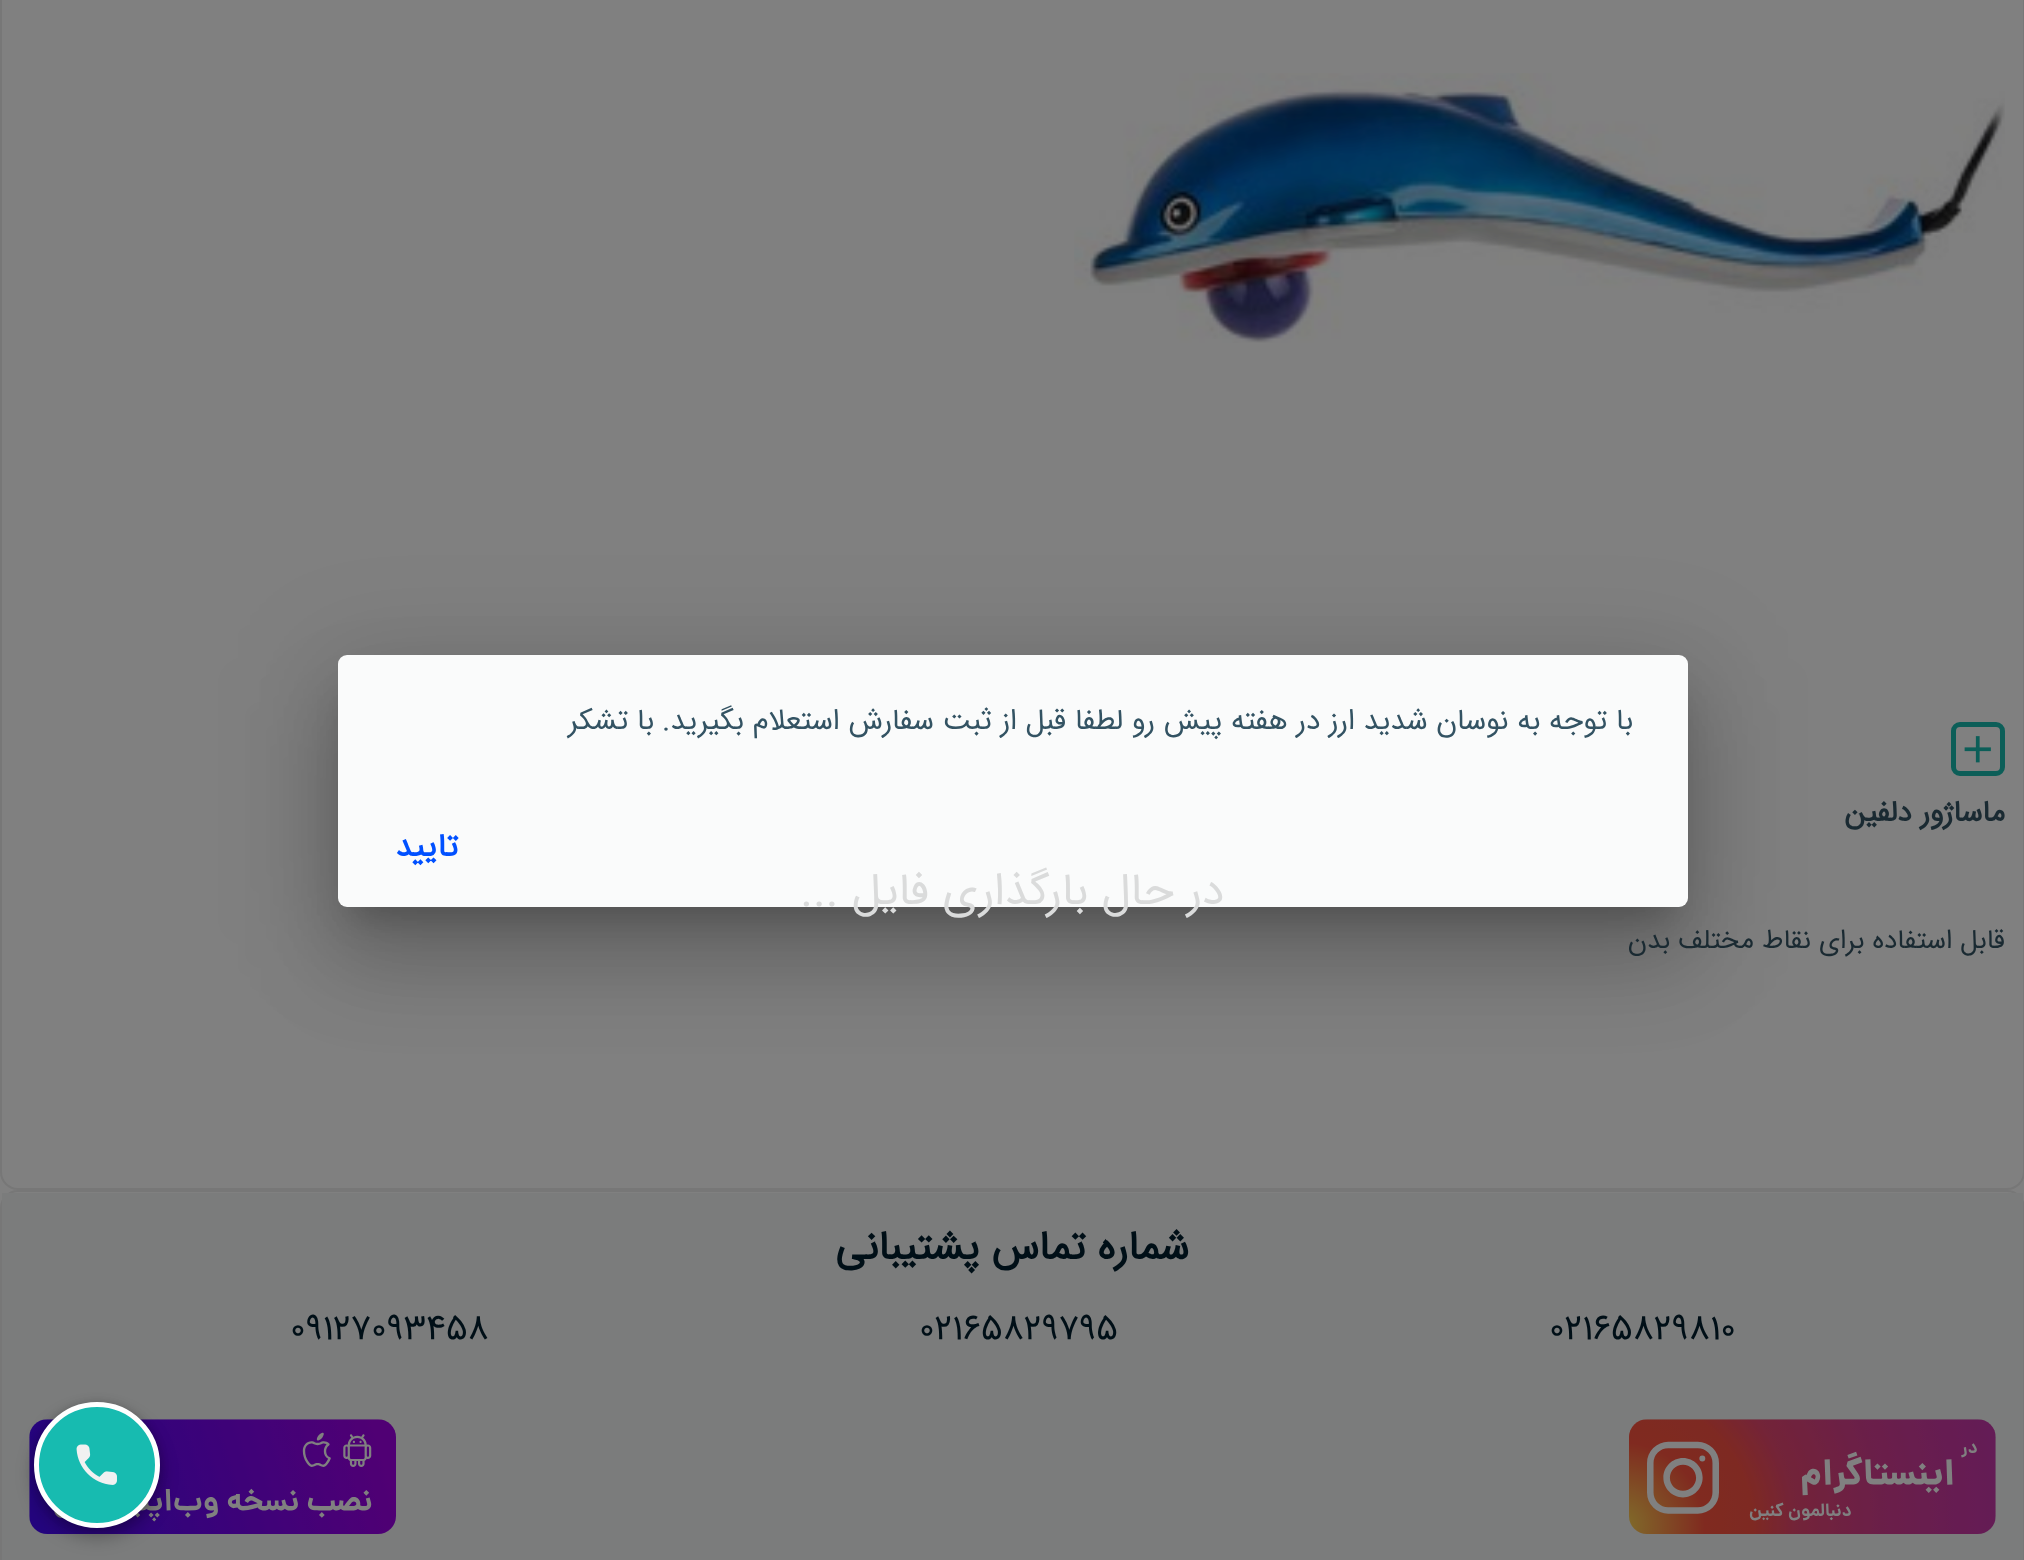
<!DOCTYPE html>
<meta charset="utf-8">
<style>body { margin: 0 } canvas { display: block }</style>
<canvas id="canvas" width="2024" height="1560"></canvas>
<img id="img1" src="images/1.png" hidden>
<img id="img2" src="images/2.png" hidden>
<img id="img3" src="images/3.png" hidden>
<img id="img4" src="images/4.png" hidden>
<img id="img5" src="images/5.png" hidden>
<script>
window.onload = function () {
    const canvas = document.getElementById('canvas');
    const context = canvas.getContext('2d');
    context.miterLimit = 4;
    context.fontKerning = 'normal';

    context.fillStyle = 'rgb(128, 128, 128)';
    context.fillRect(0, 0, 2024, 1560);
    context.beginPath();
    context.roundRect(1, -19, 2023, 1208, 17);
    context.strokeStyle = 'rgb(119, 119, 119)';
    context.lineWidth = 2;
    context.stroke();
    context.fillStyle = 'rgba(0, 0, 0, 0.12)';
    context.filter = 'blur(52px)';
    context.beginPath();
    context.roundRect(320, 657, 1386, 288, 27);
    context.fill();
    context.filter = 'none';
    context.fillStyle = 'rgba(0, 0, 0, 0.14)';
    context.filter = 'blur(43px)';
    context.beginPath();
    context.roundRect(331, 702, 1363, 266, 16);
    context.fill();
    context.filter = 'none';
    context.fillStyle = 'rgba(0, 0, 0, 0.2)';
    context.filter = 'blur(17px)';
    context.beginPath();
    context.rect(353, 695, 1319, 221);
    context.fill();
    context.filter = 'none';
    context.fillStyle = 'rgb(250, 251, 251)';
    context.beginPath();
    context.roundRect(338, 655, 1350, 252, 9);
    context.fill();
    context.drawImage(document.getElementById('img1'), 1074, 73, 931, 270);
    context.beginPath();
    context.roundRect(1953.5, 724.5, 49, 49, 6.5);
    context.strokeStyle = 'rgb(12, 94, 88)';
    context.lineWidth = 5;
    context.stroke();
    context.drawImage(document.getElementById('img2'), 1964, 736, 27, 27);
    context.beginPath();
    context.roundRect(1, 1191, 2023, 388, 17);
    context.strokeStyle = 'rgb(119, 119, 119)';
    context.lineWidth = 2;
    context.stroke();
    context.fillStyle = 'rgb(123, 124, 124)';
    context.fillRect(2, 1193, 2021, 367);
    context.drawImage(document.getElementById('img3'), 1629, 1419, 367, 115);
    context.drawImage(document.getElementById('img4'), 29, 1419, 367, 115);
    context.fillStyle = 'rgba(0, 0, 0, 0.28)';
    context.filter = 'blur(9px)';
    context.beginPath();
    context.roundRect(34, 1411, 126, 126, 63);
    context.fill();
    context.filter = 'none';
    context.fillStyle = 'rgba(0, 0, 0, 0.14)';
    context.filter = 'blur(4.5px)';
    context.beginPath();
    context.roundRect(34, 1402, 126, 126, 63);
    context.fill();
    context.filter = 'none';
    context.fillStyle = 'rgb(23, 187, 176)';
    context.beginPath();
    context.arc(97, 1465, 60.5, 0, 2 * Math.PI);
    context.fill();
    context.strokeStyle = 'rgb(255, 255, 255)';
    context.lineWidth = 5;
    context.stroke();
    context.drawImage(document.getElementById('img5'), 76, 1444, 41, 41);
    context.direction = 'rtl';
    context.font = '29.25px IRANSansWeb';
    context.fillStyle = 'rgb(51, 83, 99)';
    context.fillText('با توجه به نوسان شدید ارز در هفته پیش رو لطفا قبل از ثبت سفارش استعلام بگیرید.', 1633, 729);
    context.fillText('با تشکر', 654, 729);
    context.font = 'bold 32px IRANSansWeb';
    context.fillStyle = 'rgb(0, 80, 255)';
    context.fillText('تایید', 458, 856);
    context.font = 'bold 29.25px IRANSansWeb';
    context.fillStyle = 'rgb(26, 42, 50)';
    context.fillText('ماساژور دلفین', 2005, 821);
    context.font = '27px IRANSansWeb';
    context.fillText('قابل استفاده برای نقاط مختلف بدن', 2005, 948);
    context.font = 'bold 40.5px IRANSansWeb';
    context.fillStyle = 'rgb(0, 15, 23)';
    context.fillText('شماره تماس پشتیبانی', 1189, 1259);
    context.direction = 'ltr';
    context.font = '36px IRANSansWeb';
    context.fillText('۰۲۱۶۵۸۲۹۸۱۰', 1549, 1339);
    context.fillText('۰۲۱۶۵۸۲۹۷۹۵', 919, 1339);
    context.fillText('۰۹۱۲۷۰۹۳۴۵۸', 290, 1339);
    context.direction = 'rtl';
    context.font = '45px IRANSansWeb';
    context.fillStyle = 'rgb(218, 219, 219)';
    context.fillText('در حال بارگذاری فایل ...', 1224, 904);
};
</script>
